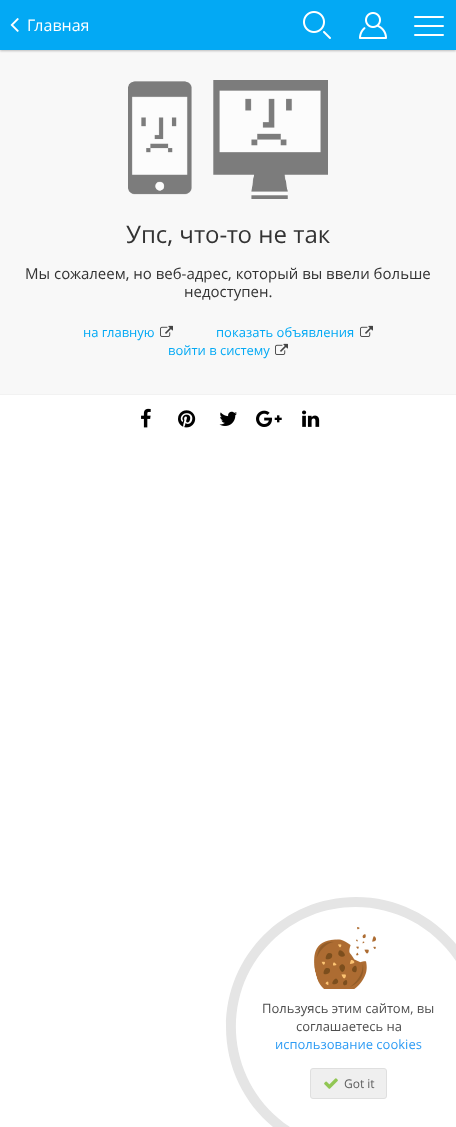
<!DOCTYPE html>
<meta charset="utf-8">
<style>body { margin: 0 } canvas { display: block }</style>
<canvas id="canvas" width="456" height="1127"></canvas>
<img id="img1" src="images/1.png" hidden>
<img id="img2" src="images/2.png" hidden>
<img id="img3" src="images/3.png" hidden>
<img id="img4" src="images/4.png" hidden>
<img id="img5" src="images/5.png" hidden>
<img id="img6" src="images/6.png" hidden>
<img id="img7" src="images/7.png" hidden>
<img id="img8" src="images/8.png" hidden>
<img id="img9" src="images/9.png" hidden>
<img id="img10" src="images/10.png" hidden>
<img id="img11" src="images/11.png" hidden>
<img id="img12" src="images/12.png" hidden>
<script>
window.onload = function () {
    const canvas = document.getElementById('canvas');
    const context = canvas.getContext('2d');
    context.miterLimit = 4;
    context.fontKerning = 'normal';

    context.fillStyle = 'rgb(255, 255, 255)';
    context.fillRect(0, 0, 456, 1127);
    context.fillStyle = 'rgb(248, 248, 248)';
    context.fillRect(0, 50, 456, 344);
    context.fillStyle = 'rgba(0, 0, 0, 0.24)';
    context.filter = 'blur(1px)';
    context.beginPath();
    context.rect(0, 1, 456, 50);
    context.fill();
    context.filter = 'none';
    context.fillStyle = 'rgb(3, 169, 244)';
    context.fillRect(0, 0, 456, 50);
    context.drawImage(document.getElementById('img1'), 10, 18, 9, 14);
    context.drawImage(document.getElementById('img2'), 303, 11, 28, 28);
    context.drawImage(document.getElementById('img3'), 359, 12, 28, 27);
    context.fillStyle = 'rgb(255, 255, 255)';
    context.beginPath();
    context.roundRect(414, 16, 30, 2, 1);
    context.fill();
    context.beginPath();
    context.roundRect(414, 25, 30, 2, 1);
    context.fill();
    context.beginPath();
    context.roundRect(414, 34, 30, 2, 1);
    context.fill();
    context.drawImage(document.getElementById('img4'), 128, 80, 200, 119);
    context.drawImage(document.getElementById('img5'), 160, 325, 13, 12);
    context.drawImage(document.getElementById('img5'), 360, 325, 13, 12);
    context.drawImage(document.getElementById('img5'), 275, 343, 13, 12);
    context.fillStyle = 'rgb(242, 242, 242)';
    context.fillRect(0, 394, 456, 1);
    context.drawImage(document.getElementById('img6'), 141, 408, 10, 20);
    context.drawImage(document.getElementById('img7'), 178, 410, 18, 18);
    context.drawImage(document.getElementById('img8'), 219, 411, 18, 15);
    context.drawImage(document.getElementById('img9'), 256, 410, 26, 17);
    context.drawImage(document.getElementById('img10'), 302, 410, 18, 17);
    context.fillStyle = 'rgb(229, 229, 229)';
    context.beginPath();
    context.moveTo(356, 897);
    context.bezierCurveTo(284, 897, 226, 955, 226, 1027);
    context.bezierCurveTo(226, 1067, 244, 1103, 273, 1127);
    context.lineTo(290, 1127);
    context.bezierCurveTo(227, 1085, 217, 996, 271, 942);
    context.bezierCurveTo(325, 888, 414, 898, 456, 961);
    context.lineTo(456, 944);
    context.bezierCurveTo(432, 915, 396, 897, 356, 897);
    context.closePath();
    context.fill();
    context.drawImage(document.getElementById('img11'), 314, 927, 62, 62);
    context.fillStyle = 'rgb(239, 239, 239)';
    context.beginPath();
    context.roundRect(310.5, 1068.5, 76, 30, 2.5);
    context.fill();
    context.strokeStyle = 'rgb(223, 223, 223)';
    context.stroke();
    context.drawImage(document.getElementById('img12'), 324, 1078, 14, 11);
    context.font = '16px Open Sans';
    context.fillStyle = 'rgb(255, 255, 255)';
    context.fillText('Главная', 27, 31);
    context.font = '24px Open Sans';
    context.fillStyle = 'rgb(51, 51, 51)';
    context.fillText('Упс, что-то не так', 126, 243);
    context.font = '15px Open Sans';
    context.fillText('Мы сожалеем, но веб-адрес, который вы ввели больше', 25, 279);
    context.fillText('недоступен.', 184, 297);
    context.font = '13px Open Sans';
    context.fillStyle = 'rgb(3, 169, 244)';
    context.fillText('на главную', 83, 337);
    context.fillText('показать объявления', 216, 337);
    context.fillText('войти в систему', 168, 355);
    context.fillStyle = 'rgb(77, 77, 77)';
    context.fillText('Пользуясь этим сайтом, вы', 262, 1013);
    context.fillText('соглашаетесь на', 296, 1031);
    context.fillStyle = 'rgb(44, 155, 244)';
    context.fillText('использование cookies', 275, 1049);
    context.font = '12px Open Sans';
    context.fillStyle = 'rgb(94, 94, 94)';
    context.fillText('Got it', 344, 1088);
};
</script>
